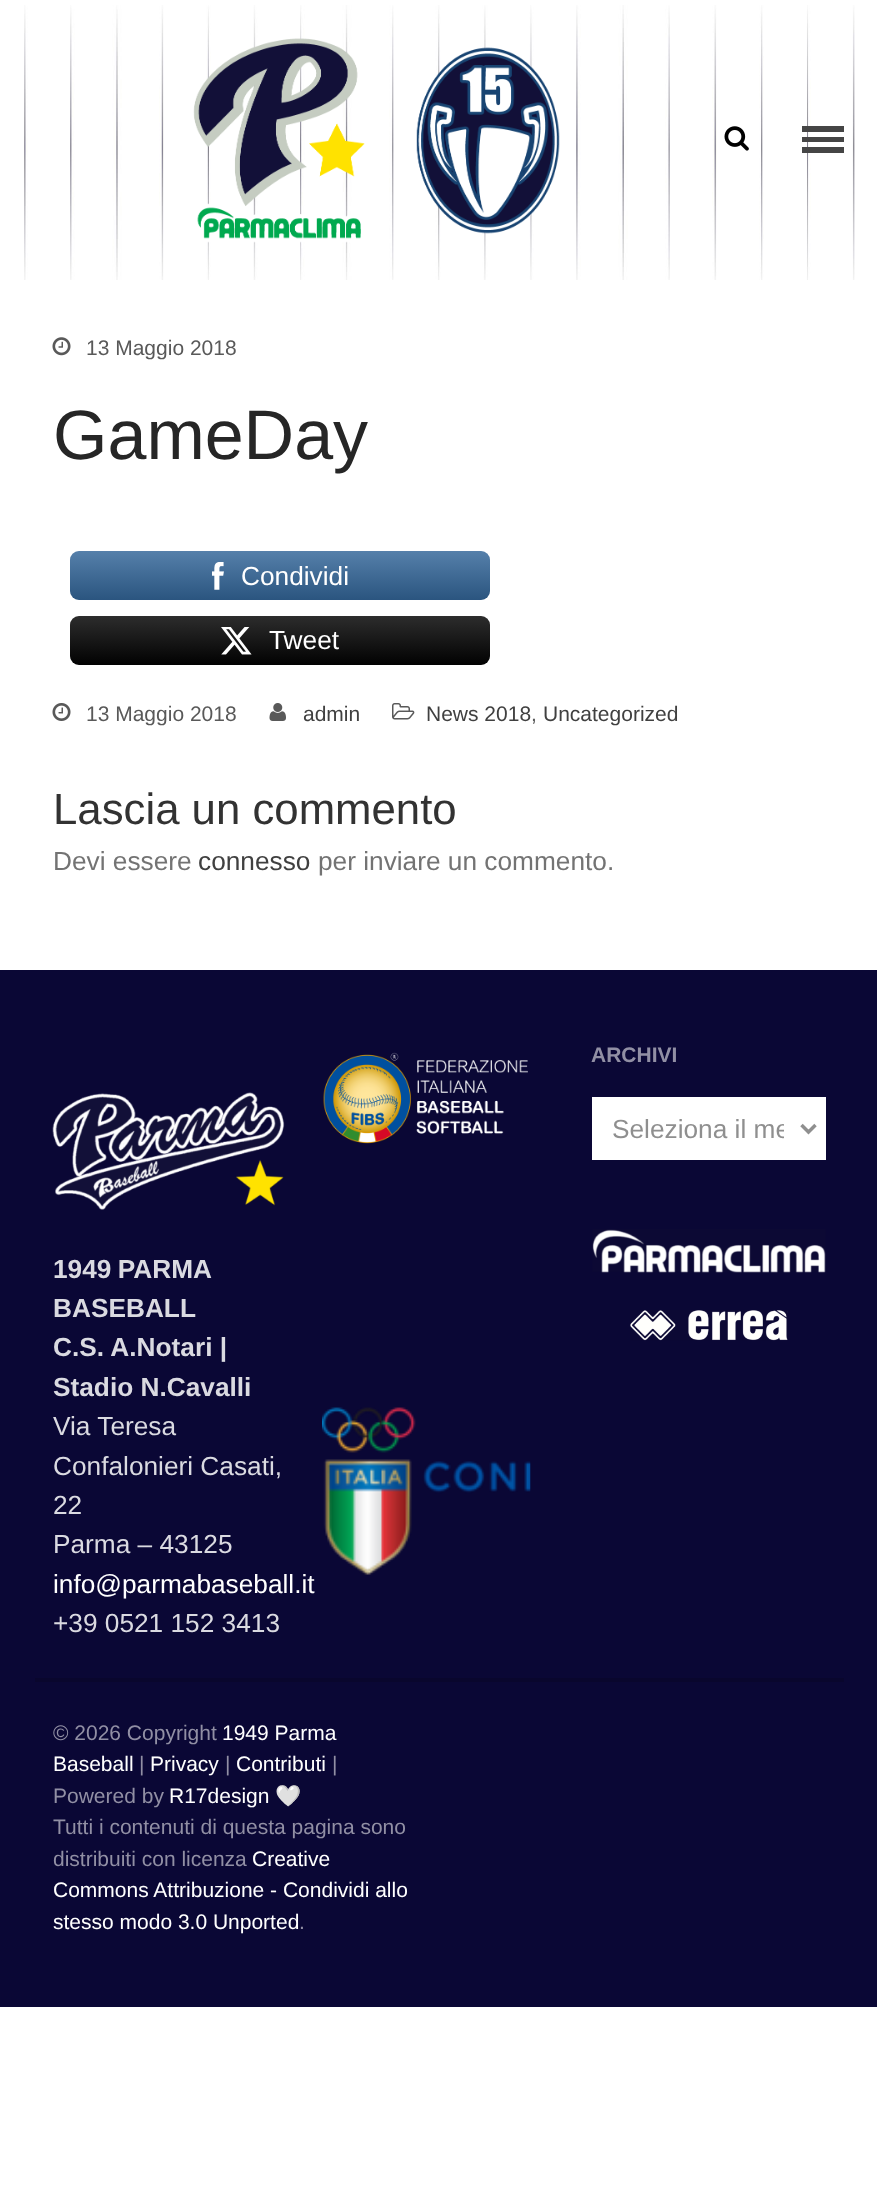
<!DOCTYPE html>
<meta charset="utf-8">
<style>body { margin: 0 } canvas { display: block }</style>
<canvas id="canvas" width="877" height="2188"></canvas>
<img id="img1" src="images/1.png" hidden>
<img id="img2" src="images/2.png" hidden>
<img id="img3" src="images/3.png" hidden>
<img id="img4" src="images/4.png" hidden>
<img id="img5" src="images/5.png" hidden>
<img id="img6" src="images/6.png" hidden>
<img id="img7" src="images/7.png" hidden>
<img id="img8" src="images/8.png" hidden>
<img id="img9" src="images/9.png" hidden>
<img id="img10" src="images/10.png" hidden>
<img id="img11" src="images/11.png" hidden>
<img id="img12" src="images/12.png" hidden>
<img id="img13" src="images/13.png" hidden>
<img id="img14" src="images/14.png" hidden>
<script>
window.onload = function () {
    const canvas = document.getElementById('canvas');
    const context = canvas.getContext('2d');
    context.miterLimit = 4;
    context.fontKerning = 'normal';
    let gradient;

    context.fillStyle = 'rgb(255, 255, 255)';
    context.fillRect(0, 0, 877, 2188);
    context.drawImage(document.getElementById('img1'), 24, 5, 831, 275);
    context.drawImage(document.getElementById('img2'), 193, 38, 367, 205);
    context.drawImage(document.getElementById('img3'), 724, 126, 25, 25);
    context.fillStyle = 'rgb(69, 69, 69)';
    context.beginPath();
    context.moveTo(802, 126);
    context.lineTo(802, 132);
    context.lineTo(844, 132);
    context.lineTo(844, 126);
    context.closePath();
    context.moveTo(802, 137);
    context.lineTo(802, 142);
    context.lineTo(844, 142);
    context.lineTo(844, 137);
    context.closePath();
    context.moveTo(802, 147);
    context.lineTo(802, 153);
    context.lineTo(844, 153);
    context.lineTo(844, 147);
    context.closePath();
    context.fill();
    context.drawImage(document.getElementById('img4'), 52, 337, 19, 19);
    context.fillStyle = 'rgb(51, 102, 153)';
    context.beginPath();
    context.roundRect(70, 551, 420, 49, 9);
    context.fill();
    gradient = context.createLinearGradient(280, 600, 280, 551);
    gradient.addColorStop(0, 'rgba(0, 0, 0, 0.17)');
    gradient.addColorStop(1, 'rgba(255, 255, 255, 0.17)');
    context.fillStyle = gradient;
    context.beginPath();
    context.roundRect(70, 551, 420, 49, 9);
    context.fill();
    context.drawImage(document.getElementById('img5'), 212, 562, 12, 28);
    context.fillStyle = 'rgb(2, 2, 2)';
    context.beginPath();
    context.roundRect(70, 616, 420, 49, 9);
    context.fill();
    gradient = context.createLinearGradient(280, 665, 280, 616);
    gradient.addColorStop(0, 'rgba(0, 0, 0, 0.17)');
    gradient.addColorStop(1, 'rgba(255, 255, 255, 0.17)');
    context.fillStyle = gradient;
    context.beginPath();
    context.roundRect(70, 616, 420, 49, 9);
    context.fill();
    context.drawImage(document.getElementById('img6'), 221, 627, 31, 28);
    context.drawImage(document.getElementById('img7'), 52, 703, 19, 18);
    context.drawImage(document.getElementById('img8'), 269, 703, 17, 18);
    context.drawImage(document.getElementById('img9'), 392, 703, 23, 17);
    context.fillStyle = 'rgb(10, 7, 53)';
    context.fillRect(0, 970, 877, 1037);
    context.drawImage(document.getElementById('img10'), 52, 1092, 233, 118);
    context.drawImage(document.getElementById('img11'), 323, 1052, 205, 92);
    context.drawImage(document.getElementById('img12'), 322, 1407, 209, 168);
    context.fillStyle = 'rgb(255, 255, 255)';
    context.fillRect(592, 1097, 234, 63);
    context.beginPath();
    context.moveTo(801.5, 1125);
    context.lineTo(808.5, 1132);
    context.lineTo(815.5, 1125);
    context.strokeStyle = 'rgb(143, 143, 143)';
    context.lineWidth = 3.5;
    context.stroke();
    context.drawImage(document.getElementById('img13'), 592, 1229, 234, 44);
    context.drawImage(document.getElementById('img14'), 630, 1310, 158, 31);
    context.fillStyle = 'rgb(9, 6, 45)';
    context.fillRect(35, 1678, 809, 4);
    context.font = '21px Liberation Sans';
    context.fillStyle = 'rgb(89, 89, 89)';
    context.fillText('13 Maggio 2018', 86, 355);
    context.font = '70px Liberation Sans';
    context.fillStyle = 'rgb(38, 38, 38)';
    context.fillText('GameDay', 53, 459);
    context.font = '26.25px Liberation Sans';
    context.fillStyle = 'rgb(255, 255, 255)';
    context.fillText('Condividi', 241, 585);
    context.fillText('Tweet', 269, 649);
    context.font = '21px Liberation Sans';
    context.fillStyle = 'rgb(89, 89, 89)';
    context.fillText('13 Maggio 2018', 86, 721);
    context.fillStyle = 'rgb(64, 64, 64)';
    context.fillText('admin', 303, 721);
    context.fillText('News 2018', 426, 721);
    context.fillStyle = 'rgb(89, 89, 89)';
    context.fillText(',', 531, 721);
    context.fillStyle = 'rgb(64, 64, 64)';
    context.fillText('Uncategorized', 543, 721);
    context.font = '43.75px Liberation Sans';
    context.fillStyle = 'rgb(50, 50, 50)';
    context.fillText('Lascia un commento', 53, 824);
    context.font = '26.25px Liberation Sans';
    context.fillStyle = 'rgb(115, 115, 115)';
    context.fillText('Devi essere', 53, 870);
    context.fillStyle = 'rgb(64, 64, 64)';
    context.fillText('connesso', 198, 870);
    context.fillStyle = 'rgb(115, 115, 115)';
    context.fillText('per inviare un commento.', 318, 870);
    context.wordSpacing = '-1px';
    context.font = 'bold 26.25px Liberation Sans';
    context.fillStyle = 'rgb(218, 218, 225)';
    context.fillText('1949 PARMA', 53, 1278);
    context.wordSpacing = '0px';
    context.fillText('BASEBALL', 53, 1317);
    context.fillText('C.S. A.Notari |', 53, 1356);
    context.fillText('Stadio N.Cavalli', 53, 1396);
    context.font = '26.25px Liberation Sans';
    context.fillText('Via Teresa', 53, 1435);
    context.fillText('Confalonieri Casati,', 53, 1475);
    context.fillText('22', 53, 1514);
    context.fillText('Parma – 43125', 53, 1553);
    context.fillStyle = 'rgb(255, 255, 255)';
    context.fillText('info@parmabaseball.it', 53, 1593);
    context.fillStyle = 'rgb(218, 218, 225)';
    context.fillText('+39 0521 152 3413', 53, 1632);
    context.font = 'bold 21px Liberation Sans';
    context.fillStyle = 'rgb(145, 143, 164)';
    context.fillText('ARCHIVI', 591, 1062);
    context.save();
    context.beginPath();
    context.rect(613, 1111, 171, 34);
    context.clip();
    context.font = '26.25px Liberation Sans';
    context.fillStyle = 'rgb(143, 143, 143)';
    context.fillText('Seleziona il me', 612, 1138);
    context.restore();
    context.font = '21px Liberation Sans';
    context.fillText('© 2026 Copyright', 53, 1740);
    context.fillStyle = 'rgb(255, 255, 255)';
    context.fillText('1949 Parma', 222, 1740);
    context.fillText('Baseball', 53, 1771);
    context.fillStyle = 'rgb(145, 143, 164)';
    context.fillText('|', 139, 1771);
    context.fillStyle = 'rgb(255, 255, 255)';
    context.fillText('Privacy', 150, 1771);
    context.fillStyle = 'rgb(145, 143, 164)';
    context.fillText('|', 225, 1771);
    context.fillStyle = 'rgb(255, 255, 255)';
    context.fillText('Contributi', 236, 1771);
    context.fillStyle = 'rgb(145, 143, 164)';
    context.fillText('|', 332, 1771);
    context.fillText('Powered by', 53, 1803);
    context.fillStyle = 'rgb(255, 255, 255)';
    context.fillText('R17design', 169, 1803);
    context.font = '21px Noto Color Emoji';
    context.fillText('🤍', 275, 1803);
    context.font = '21px Liberation Sans';
    context.fillStyle = 'rgb(145, 143, 164)';
    context.fillText('Tutti i contenuti di questa pagina sono', 53, 1834);
    context.fillText('distribuiti con licenza', 53, 1866);
    context.fillStyle = 'rgb(255, 255, 255)';
    context.fillText('Creative', 252, 1866);
    context.fillText('Commons Attribuzione - Condividi allo', 53, 1897);
    context.fillText('stesso modo 3.0 Unported', 53, 1929);
    context.fillStyle = 'rgb(145, 143, 164)';
    context.fillText('.', 299, 1929);
};
</script>
